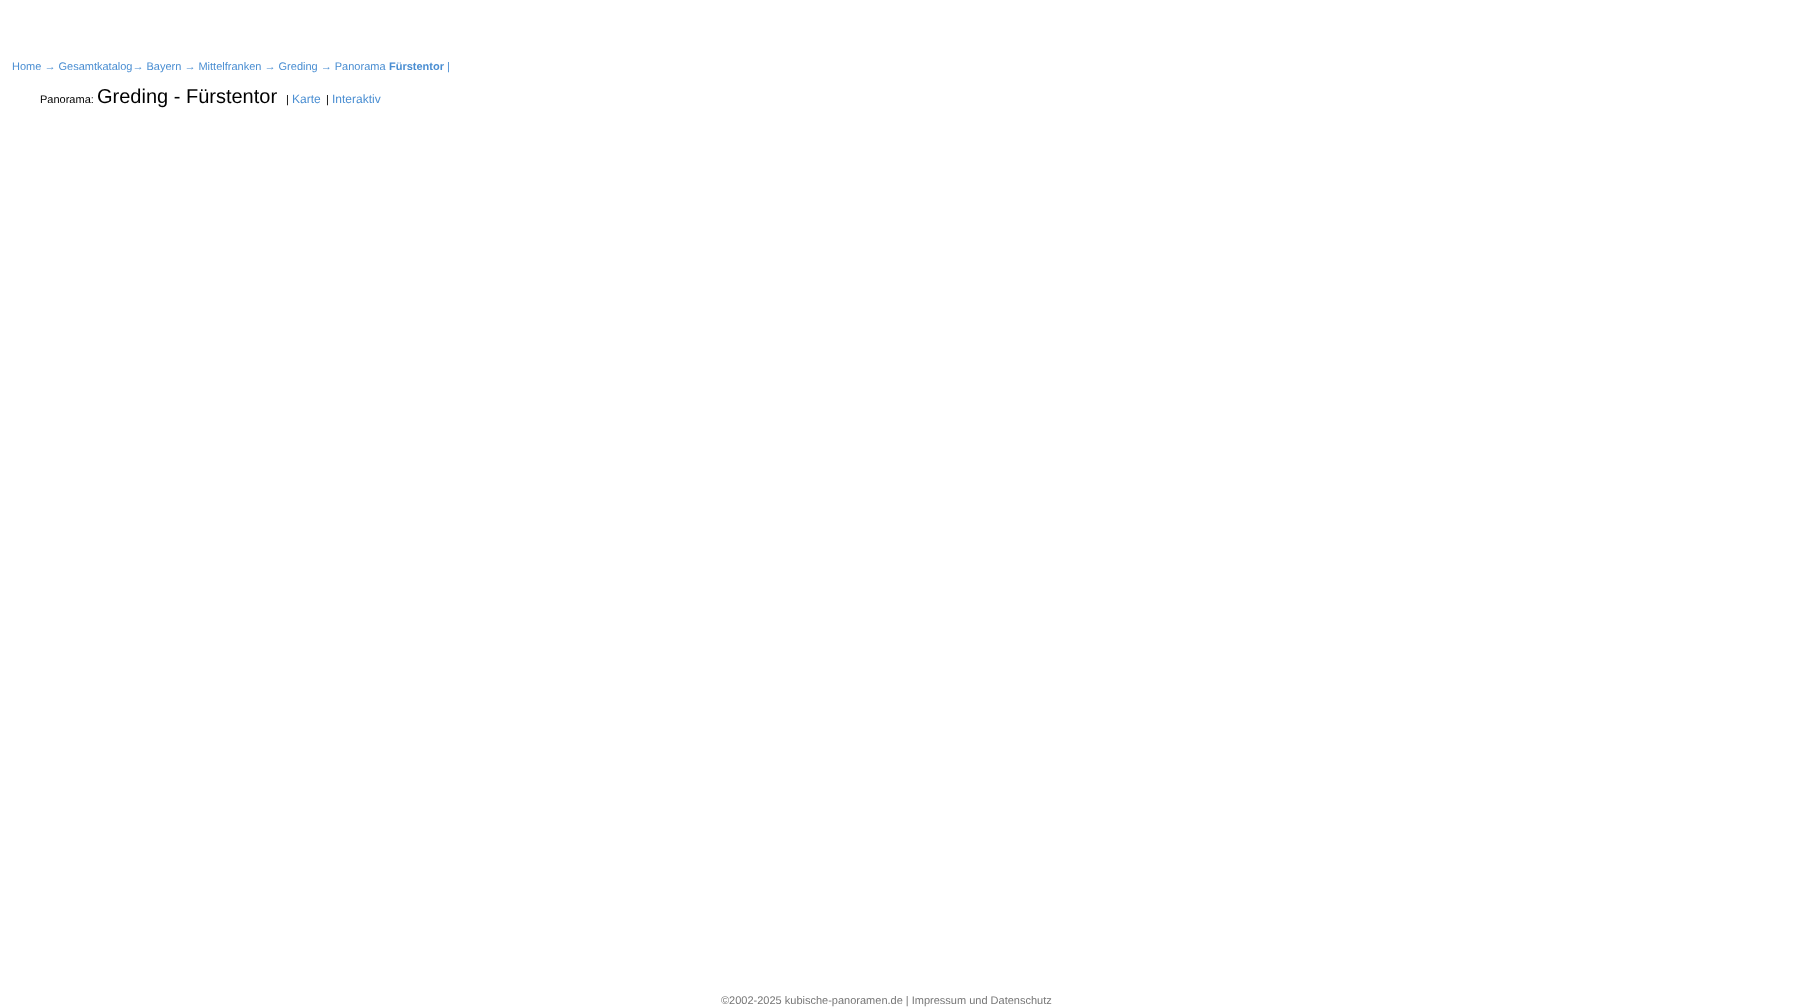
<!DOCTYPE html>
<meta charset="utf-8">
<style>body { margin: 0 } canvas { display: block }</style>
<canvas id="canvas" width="1808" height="1008"></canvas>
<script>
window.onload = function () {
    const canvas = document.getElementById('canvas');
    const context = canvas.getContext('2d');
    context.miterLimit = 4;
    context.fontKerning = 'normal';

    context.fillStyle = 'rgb(255, 255, 255)';
    context.fillRect(0, 0, 1808, 1008);
    context.font = '11px Liberation Sans';
    context.fillStyle = 'rgb(74, 142, 210)';
    context.fillText('Home → Gesamtkatalog→ Bayern → Mittelfranken → Greding → Panorama', 12, 70);
    context.font = 'bold 11px Liberation Sans';
    context.fillText('Fürstentor', 389, 70);
    context.font = '11px Liberation Sans';
    context.fillText('|', 447, 70);
    context.fillStyle = 'rgb(0, 0, 0)';
    context.fillText('Panorama:', 40, 103);
    context.font = '20px Liberation Sans';
    context.fillText('Greding - Fürstentor', 97, 103);
    context.font = '11px Liberation Sans';
    context.fillText('|', 286, 103);
    context.font = '12px Liberation Sans';
    context.fillStyle = 'rgb(74, 142, 210)';
    context.fillText('Karte', 292, 103);
    context.font = '11px Liberation Sans';
    context.fillStyle = 'rgb(0, 0, 0)';
    context.fillText('|', 326, 103);
    context.font = '12px Liberation Sans';
    context.fillStyle = 'rgb(74, 142, 210)';
    context.fillText('Interaktiv', 332, 103);
    context.font = '11px Liberation Sans';
    context.fillStyle = 'rgb(119, 119, 119)';
    context.fillText('©2002-2025 kubische-panoramen.de | Impressum und Datenschutz', 721, 1004);
};
</script>
